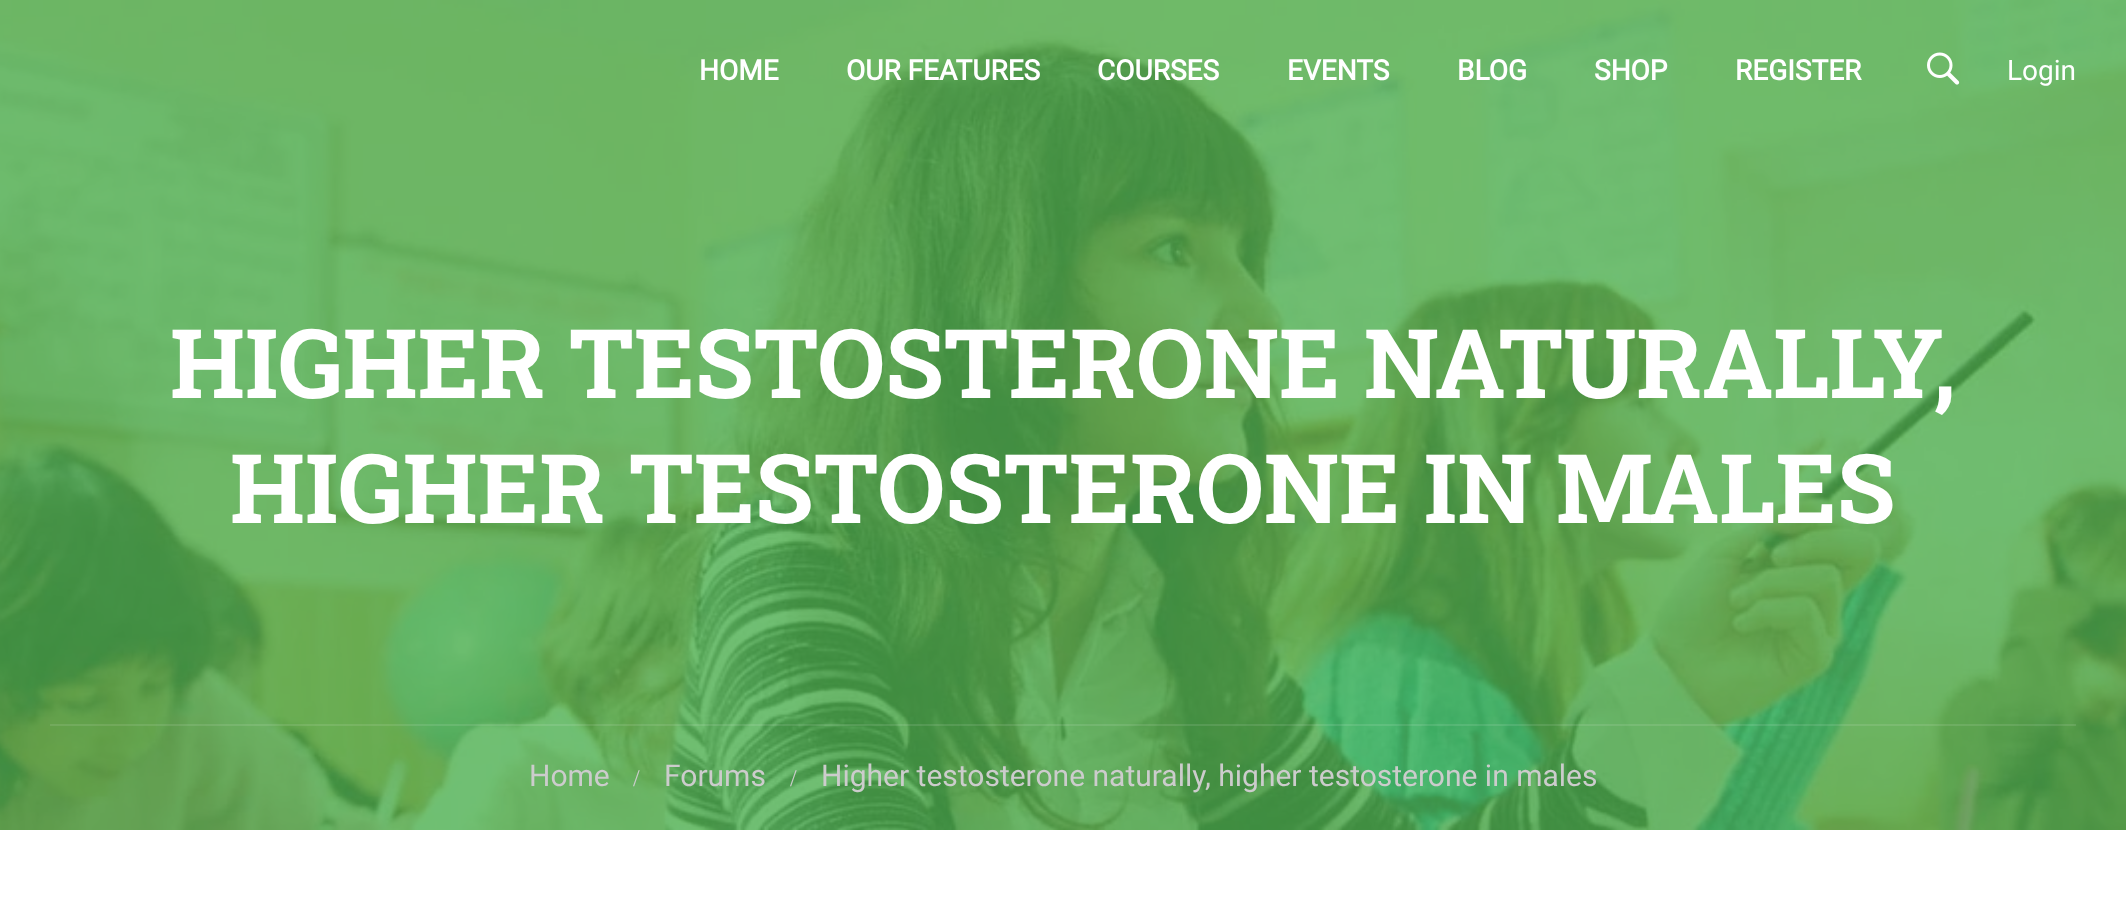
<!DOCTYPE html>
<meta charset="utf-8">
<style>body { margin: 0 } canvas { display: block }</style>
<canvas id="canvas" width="2126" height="916"></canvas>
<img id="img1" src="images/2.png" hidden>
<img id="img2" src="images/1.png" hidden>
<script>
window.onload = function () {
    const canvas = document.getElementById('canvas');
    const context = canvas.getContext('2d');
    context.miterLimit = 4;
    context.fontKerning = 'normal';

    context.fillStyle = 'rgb(255, 255, 255)';
    context.fillRect(0, 0, 2126, 916);
    context.drawImage(document.getElementById('img1'), 0, 0, 2126, 830);
    context.drawImage(document.getElementById('img2'), 1927, 52, 33, 33);
    context.fillStyle = 'rgba(255, 255, 255, 0.1)';
    context.fillRect(50, 724, 2026, 2);
    context.font = 'bold 28px Roboto';
    context.fillStyle = 'rgb(255, 255, 255)';
    context.fillText('HOME', 699, 80);
    context.fillText('OUR FEATURES', 846, 80);
    context.fillText('COURSES', 1097, 80);
    context.fillText('EVENTS', 1287, 80);
    context.fillText('BLOG', 1457, 80);
    context.fillText('SHOP', 1594, 80);
    context.fillText('REGISTER', 1735, 80);
    context.font = '28px Roboto';
    context.fillText('Login', 2007, 80);
    context.font = 'bold 96px Roboto Slab';
    context.fillText('HIGHER TESTOSTERONE NATURALLY,', 170, 398);
    context.fillText('HIGHER TESTOSTERONE IN MALES', 230, 523);
    context.font = '30px Roboto';
    context.fillStyle = 'rgb(204, 204, 204)';
    context.fillText('Home', 529, 786);
    context.font = '24px Liberation Serif';
    context.fillText('/', 633, 786);
    context.font = '30px Roboto';
    context.fillText('Forums', 664, 786);
    context.font = '24px Liberation Serif';
    context.fillText('/', 790, 786);
    context.font = '30px Roboto';
    context.fillText('Higher testosterone naturally, higher testosterone in males', 821, 786);
};
</script>
